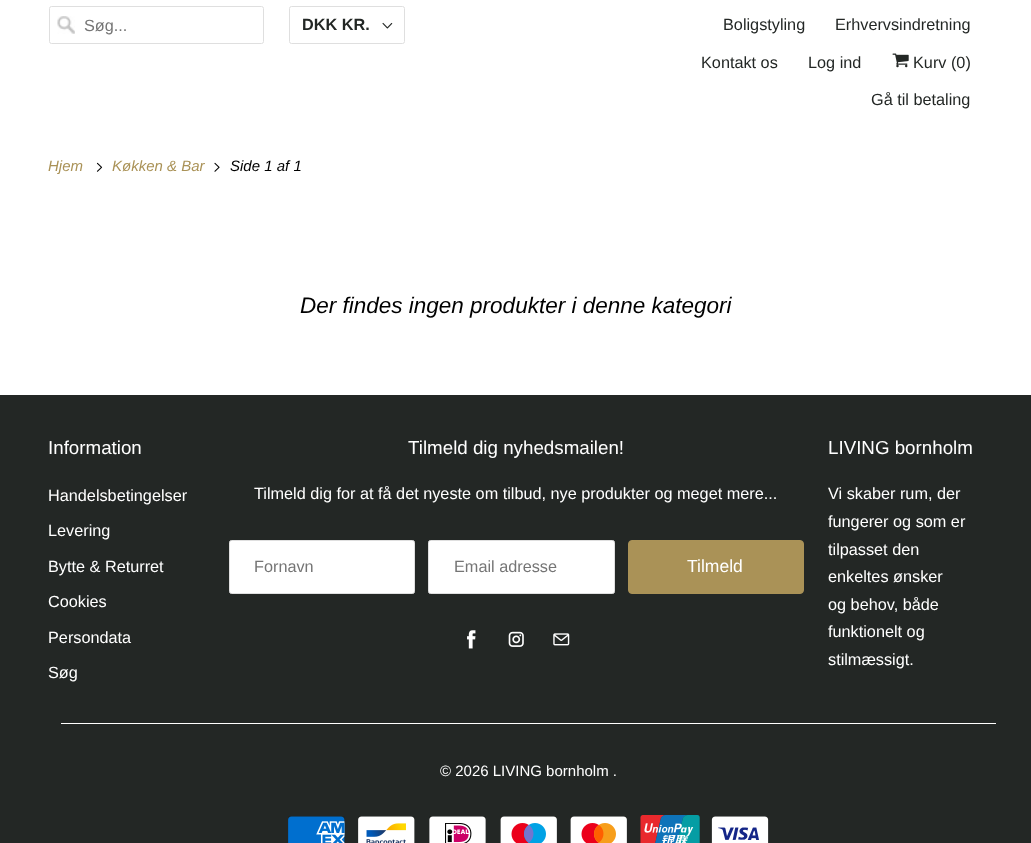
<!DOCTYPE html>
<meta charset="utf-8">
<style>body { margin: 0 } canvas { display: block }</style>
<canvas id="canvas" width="1031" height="843"></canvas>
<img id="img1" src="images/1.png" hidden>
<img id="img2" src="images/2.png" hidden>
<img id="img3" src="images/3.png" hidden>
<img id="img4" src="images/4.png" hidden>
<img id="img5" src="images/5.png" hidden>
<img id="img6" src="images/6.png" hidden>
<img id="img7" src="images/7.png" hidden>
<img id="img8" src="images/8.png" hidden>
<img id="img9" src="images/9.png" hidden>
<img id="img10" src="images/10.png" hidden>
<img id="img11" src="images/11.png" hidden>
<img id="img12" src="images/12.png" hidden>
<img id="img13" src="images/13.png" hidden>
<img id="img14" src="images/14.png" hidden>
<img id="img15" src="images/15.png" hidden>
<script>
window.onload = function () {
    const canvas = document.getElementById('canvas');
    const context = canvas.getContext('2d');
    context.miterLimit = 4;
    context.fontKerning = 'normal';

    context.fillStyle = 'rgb(255, 255, 255)';
    context.fillRect(0, 0, 1031, 843);
    context.drawImage(document.getElementById('img1'), 57, 16, 18, 18);
    context.beginPath();
    context.roundRect(49.5, 6.5, 214, 37, 2);
    context.strokeStyle = 'rgb(223, 223, 223)';
    context.stroke();
    context.beginPath();
    context.roundRect(289.5, 6.5, 115, 37, 2);
    context.stroke();
    context.drawImage(document.getElementById('img2'), 382, 22, 11, 7);
    context.drawImage(document.getElementById('img3'), 892, 53, 17, 15);
    context.drawImage(document.getElementById('img4'), 96, 162, 7, 10);
    context.drawImage(document.getElementById('img5'), 214, 162, 6, 10);
    context.fillStyle = 'rgb(35, 39, 37)';
    context.fillRect(0, 395, 1031, 448);
    context.fillStyle = 'rgb(255, 255, 255)';
    context.beginPath();
    context.roundRect(229.5, 540.5, 185, 53, 2);
    context.fill();
    context.stroke();
    context.beginPath();
    context.roundRect(428.5, 540.5, 186, 53, 2);
    context.fill();
    context.stroke();
    context.fillStyle = 'rgb(170, 146, 87)';
    context.beginPath();
    context.roundRect(628.5, 540.5, 175, 53, 3.5);
    context.fill();
    context.strokeStyle = 'rgb(170, 146, 87)';
    context.stroke();
    context.drawImage(document.getElementById('img6'), 467, 630, 9, 19);
    context.drawImage(document.getElementById('img7'), 508, 631, 16, 16);
    context.drawImage(document.getElementById('img8'), 553, 633, 17, 13);
    context.fillStyle = 'rgb(255, 255, 255)';
    context.fillRect(61, 723, 935, 1);
    context.drawImage(document.getElementById('img9'), 288, 816, 57, 27);
    context.drawImage(document.getElementById('img10'), 358, 816, 57, 27);
    context.drawImage(document.getElementById('img11'), 429, 816, 57, 27);
    context.drawImage(document.getElementById('img12'), 500, 816, 57, 27);
    context.drawImage(document.getElementById('img13'), 570, 816, 57, 27);
    context.drawImage(document.getElementById('img14'), 640, 815, 60, 28);
    context.drawImage(document.getElementById('img15'), 711, 816, 58, 27);
    context.font = '16.25px Liberation Sans';
    context.fillStyle = 'rgb(117, 117, 117)';
    context.fillText('Søg...', 84, 31);
    context.font = 'bold 16.25px Liberation Sans';
    context.fillStyle = 'rgb(35, 39, 37)';
    context.fillText('DKK KR.', 302, 30);
    context.font = '16.25px Liberation Sans';
    context.fillText('Boligstyling', 723, 30);
    context.fillText('Erhvervsindretning', 835, 30);
    context.fillText('Kontakt os', 701, 68);
    context.fillText('Log ind', 808, 68);
    context.fillText('Kurv (0)', 913, 68);
    context.fillText('Gå til betaling', 871, 105);
    context.font = 'italic 15px Liberation Sans';
    context.fillStyle = 'rgb(170, 146, 87)';
    context.fillText('Hjem', 48, 171);
    context.fillText('Køkken & Bar', 112, 171);
    context.fillStyle = 'rgb(0, 0, 0)';
    context.fillText('Side 1 af 1', 230, 171);
    context.font = 'italic 22.5px Liberation Sans';
    context.fillText('Der findes ingen produkter i denne kategori', 300, 313);
    context.font = '18.75px Liberation Sans';
    context.fillStyle = 'rgb(255, 255, 255)';
    context.fillText('Information', 48, 454);
    context.font = '16.25px Liberation Sans';
    context.fillText('Handelsbetingelser', 48, 501);
    context.fillText('Levering', 48, 536);
    context.fillText('Bytte & Returret', 48, 572);
    context.fillText('Cookies', 48, 607);
    context.fillText('Persondata', 48, 643);
    context.fillText('Søg', 48, 678);
    context.font = '18.75px Liberation Sans';
    context.fillText('Tilmeld dig nyhedsmailen!', 408, 454);
    context.font = '16.25px Liberation Sans';
    context.fillText('Tilmeld dig for at få det nyeste om tilbud, nye produkter og meget mere...', 254, 499);
    context.fillStyle = 'rgb(117, 117, 117)';
    context.fillText('Fornavn', 254, 572);
    context.fillText('Email adresse', 454, 572);
    context.font = '17.5px Liberation Sans';
    context.fillStyle = 'rgb(255, 255, 255)';
    context.fillText('Tilmeld', 687, 572);
    context.font = '18.75px Liberation Sans';
    context.fillText('LIVING bornholm', 828, 454);
    context.font = '16.25px Liberation Sans';
    context.fillText('Vi skaber rum, der', 828, 499);
    context.fillText('fungerer og som er', 828, 527);
    context.fillText('tilpasset den', 828, 555);
    context.fillText('enkeltes ønsker', 828, 582);
    context.fillText('og behov, både', 828, 610);
    context.fillText('funktionelt og', 828, 637);
    context.fillText('stilmæssigt.', 828, 665);
    context.font = '15px Liberation Sans';
    context.fillText('© 2026 LIVING bornholm .', 440, 776);
};
</script>
